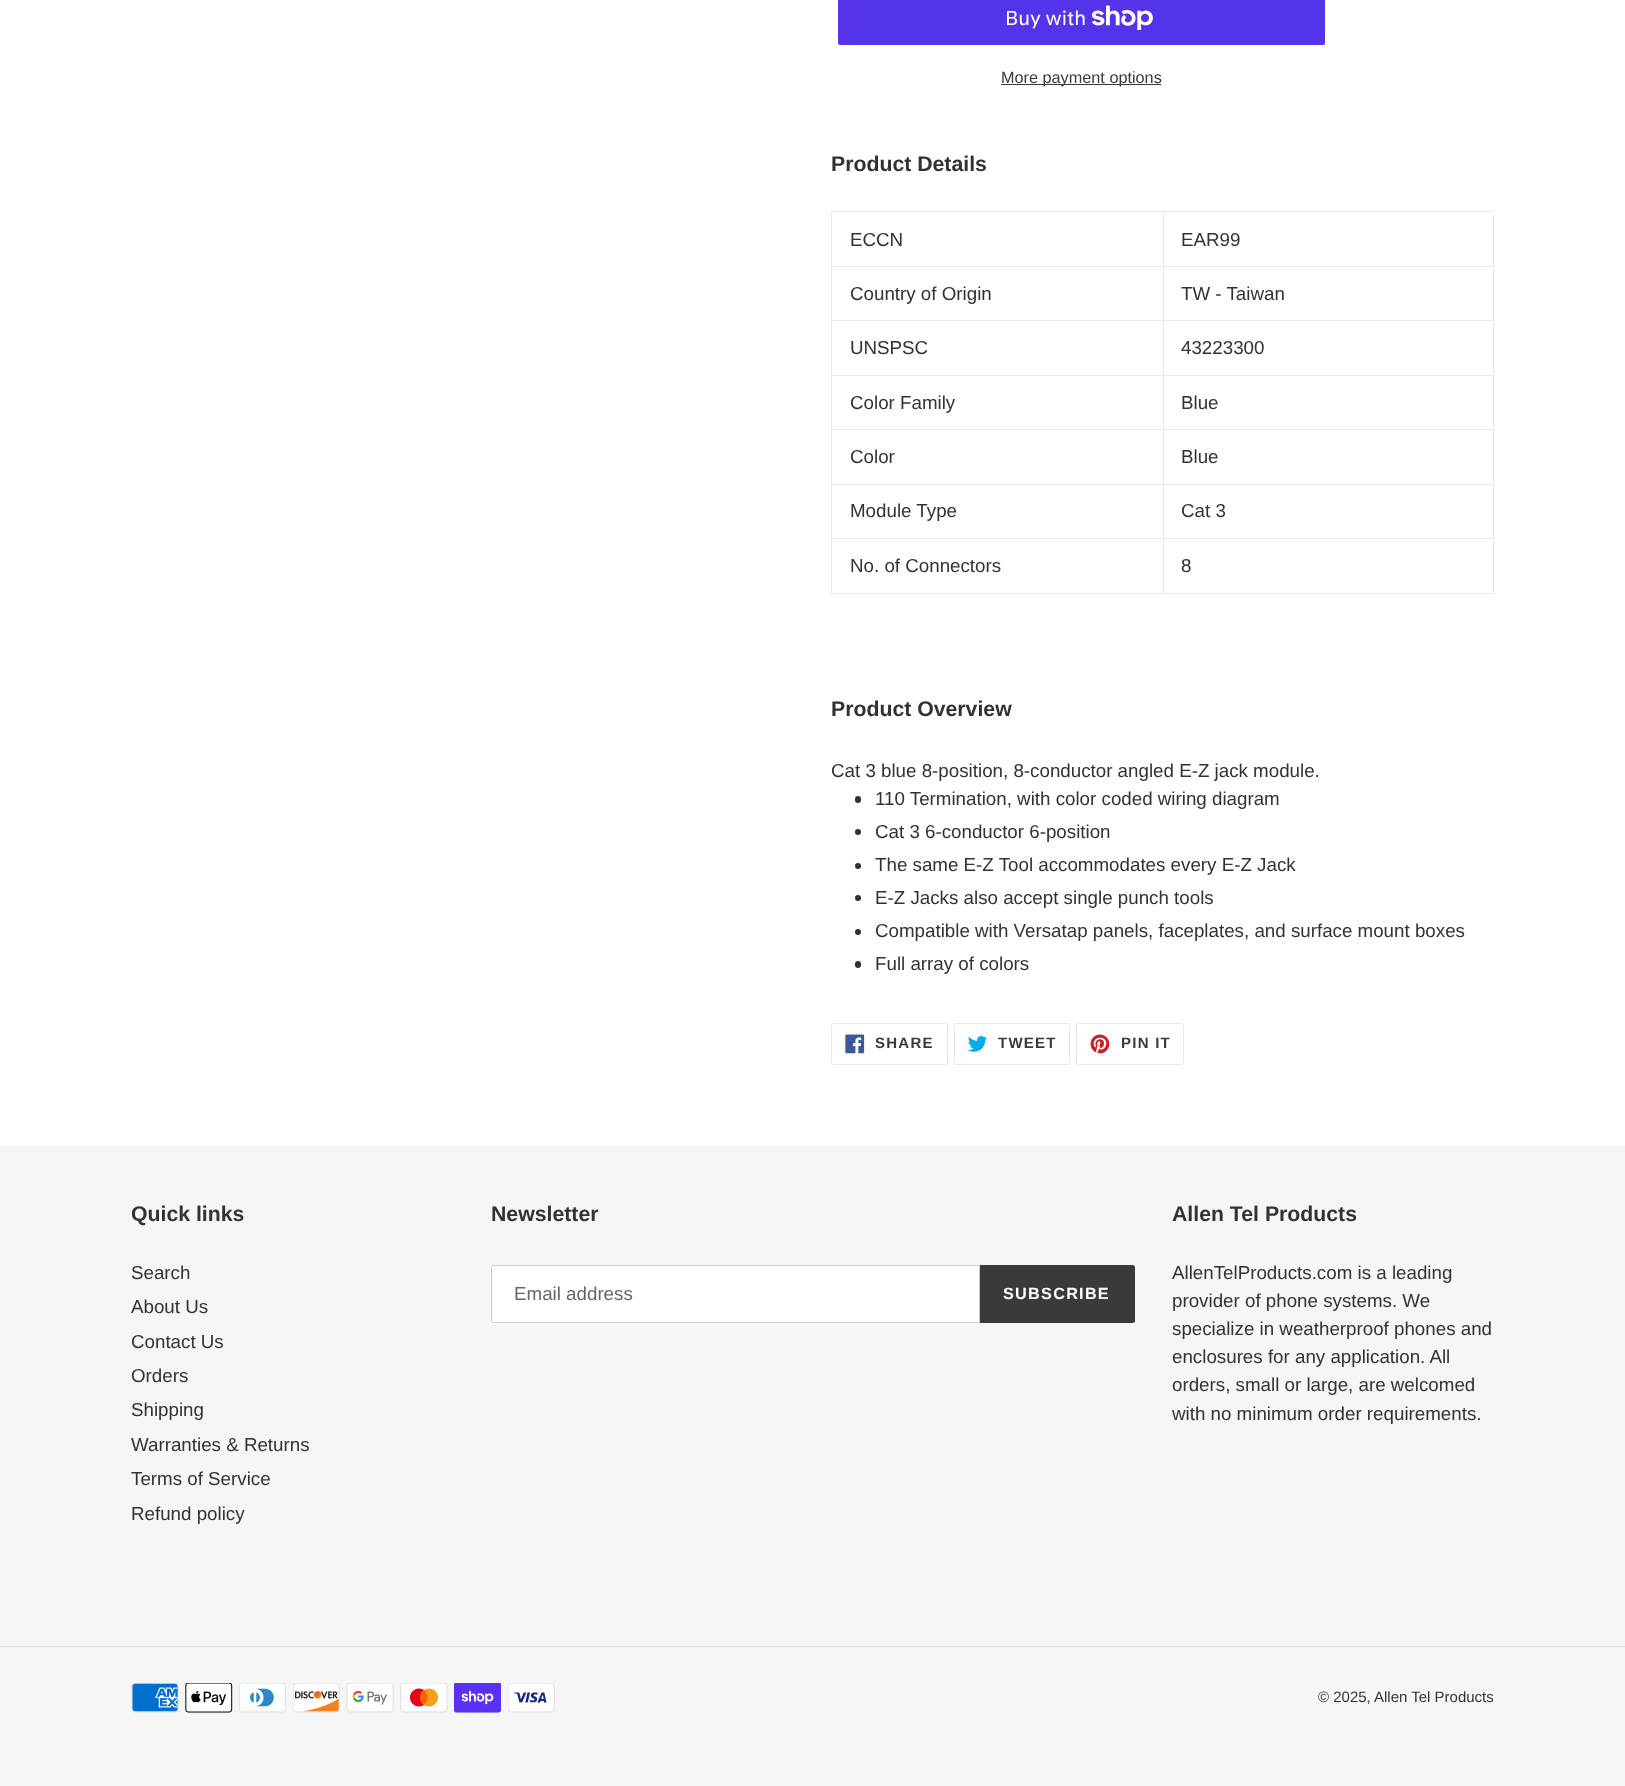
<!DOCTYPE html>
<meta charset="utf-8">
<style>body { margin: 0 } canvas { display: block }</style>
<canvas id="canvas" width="1625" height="1786"></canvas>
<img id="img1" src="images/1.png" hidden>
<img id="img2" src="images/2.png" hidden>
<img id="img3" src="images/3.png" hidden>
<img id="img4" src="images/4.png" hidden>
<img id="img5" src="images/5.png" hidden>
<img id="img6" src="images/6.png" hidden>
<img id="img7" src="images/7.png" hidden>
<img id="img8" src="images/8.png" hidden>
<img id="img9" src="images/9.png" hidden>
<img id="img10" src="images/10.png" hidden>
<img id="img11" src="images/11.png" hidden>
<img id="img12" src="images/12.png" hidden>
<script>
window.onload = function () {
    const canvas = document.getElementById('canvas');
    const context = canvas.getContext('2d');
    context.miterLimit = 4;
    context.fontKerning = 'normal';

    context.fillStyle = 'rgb(255, 255, 255)';
    context.fillRect(0, 0, 1625, 1786);
    context.fillStyle = 'rgb(84, 51, 235)';
    context.beginPath();
    context.roundRect(838, -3, 487, 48, 2.5);
    context.fill();
    context.drawImage(document.getElementById('img1'), 1091, 5, 62, 25);
    context.fillStyle = 'rgb(58, 58, 58)';
    context.fillRect(1001, 84, 160, 1);
    context.fillStyle = 'rgb(235, 235, 235)';
    context.fillRect(1163, 211, 331, 1);
    context.fillRect(1163, 266, 331, 1);
    context.fillRect(1163, 320, 331, 1);
    context.fillRect(1163, 375, 331, 1);
    context.fillRect(1163, 429, 331, 1);
    context.fillRect(1163, 484, 331, 1);
    context.fillRect(1163, 538, 331, 1);
    context.fillRect(1493, 538, 1, 56);
    context.fillRect(1163, 593, 331, 1);
    context.fillRect(1163, 538, 1, 56);
    context.fillRect(831, 538, 333, 1);
    context.fillRect(1163, 484, 1, 55);
    context.fillRect(831, 484, 333, 1);
    context.fillRect(1163, 429, 1, 56);
    context.fillRect(831, 429, 333, 1);
    context.fillRect(1163, 375, 1, 55);
    context.fillRect(831, 375, 333, 1);
    context.fillRect(1163, 320, 1, 56);
    context.fillRect(831, 320, 333, 1);
    context.fillRect(1163, 266, 1, 55);
    context.fillRect(831, 266, 333, 1);
    context.fillRect(1163, 211, 1, 57);
    context.fillRect(831, 211, 333, 1);
    context.fillRect(831, 593, 333, 1);
    context.fillRect(831, 538, 1, 56);
    context.fillRect(831, 484, 1, 55);
    context.fillRect(831, 429, 1, 56);
    context.fillRect(831, 375, 1, 55);
    context.fillRect(831, 320, 1, 56);
    context.fillRect(831, 266, 1, 55);
    context.fillRect(831, 211, 1, 57);
    context.fillRect(1493, 484, 1, 55);
    context.fillRect(1493, 429, 1, 56);
    context.fillRect(1493, 375, 1, 55);
    context.fillRect(1493, 320, 1, 56);
    context.fillRect(1493, 266, 1, 55);
    context.fillRect(1493, 211, 1, 57);
    context.fillStyle = 'rgb(51, 50, 50)';
    context.beginPath();
    context.roundRect(855, 796, 6, 7, 3);
    context.fill();
    context.beginPath();
    context.arc(858, 832, 3, 0, 2 * Math.PI);
    context.fill();
    context.beginPath();
    context.arc(858, 866, 3, 0, 2 * Math.PI);
    context.fill();
    context.beginPath();
    context.arc(858, 898, 3, 0, 2 * Math.PI);
    context.fill();
    context.beginPath();
    context.arc(858, 932, 3, 0, 2 * Math.PI);
    context.fill();
    context.beginPath();
    context.roundRect(855, 961, 6, 7, 3);
    context.fill();
    context.beginPath();
    context.roundRect(831.5, 1023.5, 116, 41, 2);
    context.strokeStyle = 'rgb(235, 235, 235)';
    context.stroke();
    context.drawImage(document.getElementById('img2'), 845, 1034, 20, 20);
    context.beginPath();
    context.roundRect(954.5, 1023.5, 115, 41, 2);
    context.stroke();
    context.drawImage(document.getElementById('img3'), 968, 1036, 19, 16);
    context.beginPath();
    context.roundRect(1076.5, 1023.5, 107, 41, 2);
    context.stroke();
    context.drawImage(document.getElementById('img4'), 1090, 1034, 20, 20);
    context.fillStyle = 'rgb(246, 246, 246)';
    context.fillRect(0, 1146, 1625, 640);
    context.fillStyle = 'rgb(255, 255, 255)';
    context.beginPath();
    context.roundRect(491.5, 1265.5, 488, 57, [2, 0, 0, 2]);
    context.fill();
    context.strokeStyle = 'rgb(204, 204, 204)';
    context.stroke();
    context.fillStyle = 'rgb(58, 58, 58)';
    context.beginPath();
    context.roundRect(980, 1265, 155, 58, [0, 2.5, 2.5, 0]);
    context.fill();
    context.fillStyle = 'rgb(221, 221, 221)';
    context.fillRect(0, 1646, 1625, 1);
    context.drawImage(document.getElementById('img5'), 131, 1683, 48, 30);
    context.drawImage(document.getElementById('img6'), 185, 1683, 48, 30);
    context.drawImage(document.getElementById('img7'), 239, 1683, 47, 30);
    context.drawImage(document.getElementById('img8'), 293, 1683, 47, 30);
    context.drawImage(document.getElementById('img9'), 346, 1683, 48, 30);
    context.drawImage(document.getElementById('img10'), 400, 1683, 48, 30);
    context.drawImage(document.getElementById('img11'), 454, 1683, 47, 30);
    context.drawImage(document.getElementById('img12'), 508, 1683, 47, 30);
    context.font = '20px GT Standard';
    context.fillStyle = 'rgb(255, 255, 255)';
    context.fillText('Buy with', 1005, 25);
    context.font = '16.25px Liberation Sans';
    context.fillStyle = 'rgb(58, 58, 58)';
    context.fillText('More payment options', 1001, 83);
    context.font = 'bold 21.25px Liberation Sans';
    context.fillStyle = 'rgb(51, 50, 50)';
    context.fillText('Product Details', 831, 171);
    context.font = '18.75px Liberation Sans';
    context.fillText('ECCN', 850, 246);
    context.fillText('EAR99', 1181, 246);
    context.fillText('Country of Origin', 850, 300);
    context.fillText('TW - Taiwan', 1181, 300);
    context.fillText('UNSPSC', 850, 354);
    context.fillText('43223300', 1181, 354);
    context.fillText('Color Family', 850, 409);
    context.fillText('Blue', 1181, 409);
    context.fillText('Color', 850, 463);
    context.fillText('Blue', 1181, 463);
    context.fillText('Module Type', 850, 517);
    context.fillText('Cat 3', 1181, 517);
    context.fillText('No. of Connectors', 850, 572);
    context.fillText('8', 1181, 572);
    context.font = 'bold 21.25px Liberation Sans';
    context.fillText('Product Overview', 831, 716);
    context.font = '18.75px Liberation Sans';
    context.fillText('Cat 3 blue 8-position, 8-conductor angled E-Z jack module.', 831, 777);
    context.fillText('110 Termination, with color coded wiring diagram', 875, 805);
    context.fillText('Cat 3 6-conductor 6-position', 875, 838);
    context.fillText('The same E-Z Tool accommodates every E-Z Jack', 875, 871);
    context.fillText('E-Z Jacks also accept single punch tools', 875, 904);
    context.fillText('Compatible with Versatap panels, faceplates, and surface mount boxes', 875, 937);
    context.fillText('Full array of colors', 875, 970);
    context.letterSpacing = '1.25px';
    context.font = 'bold 15px Liberation Sans';
    context.fillStyle = 'rgb(58, 58, 58)';
    context.fillText('SHARE', 875, 1048);
    context.fillText('TWEET', 998, 1048);
    context.fillText('PIN IT', 1121, 1048);
    context.letterSpacing = '0px';
    context.font = 'bold 21.25px Liberation Sans';
    context.fillStyle = 'rgb(51, 50, 50)';
    context.fillText('Quick links', 131, 1221);
    context.font = '18.75px Liberation Sans';
    context.fillText('Search', 131, 1279);
    context.fillText('About Us', 131, 1313);
    context.fillText('Contact Us', 131, 1348);
    context.fillText('Orders', 131, 1382);
    context.fillText('Shipping', 131, 1416);
    context.fillText('Warranties & Returns', 131, 1451);
    context.fillText('Terms of Service', 131, 1485);
    context.fillText('Refund policy', 131, 1520);
    context.font = 'bold 21.25px Liberation Sans';
    context.fillText('Newsletter', 491, 1221);
    context.font = '18.75px Liberation Sans';
    context.fillStyle = 'rgb(102, 102, 102)';
    context.fillText('Email address', 514, 1300);
    context.letterSpacing = '1.25px';
    context.font = 'bold 16.25px Liberation Sans';
    context.fillStyle = 'rgb(255, 255, 255)';
    context.fillText('SUBSCRIBE', 1003, 1299);
    context.letterSpacing = '0px';
    context.font = 'bold 21.25px Liberation Sans';
    context.fillStyle = 'rgb(51, 50, 50)';
    context.fillText('Allen Tel Products', 1172, 1221);
    context.font = '18.75px Liberation Sans';
    context.fillText('AllenTelProducts.com is a leading', 1172, 1279);
    context.fillText('provider of phone systems. We', 1172, 1307);
    context.fillText('specialize in weatherproof phones and', 1172, 1335);
    context.fillText('enclosures for any application. All', 1172, 1363);
    context.fillText('orders, small or large, are welcomed', 1172, 1391);
    context.fillText('with no minimum order requirements.', 1172, 1420);
    context.font = '15px Liberation Sans';
    context.fillText('© 2025,', 1318, 1702);
    context.fillText('Allen Tel Products', 1374, 1702);
};
</script>
